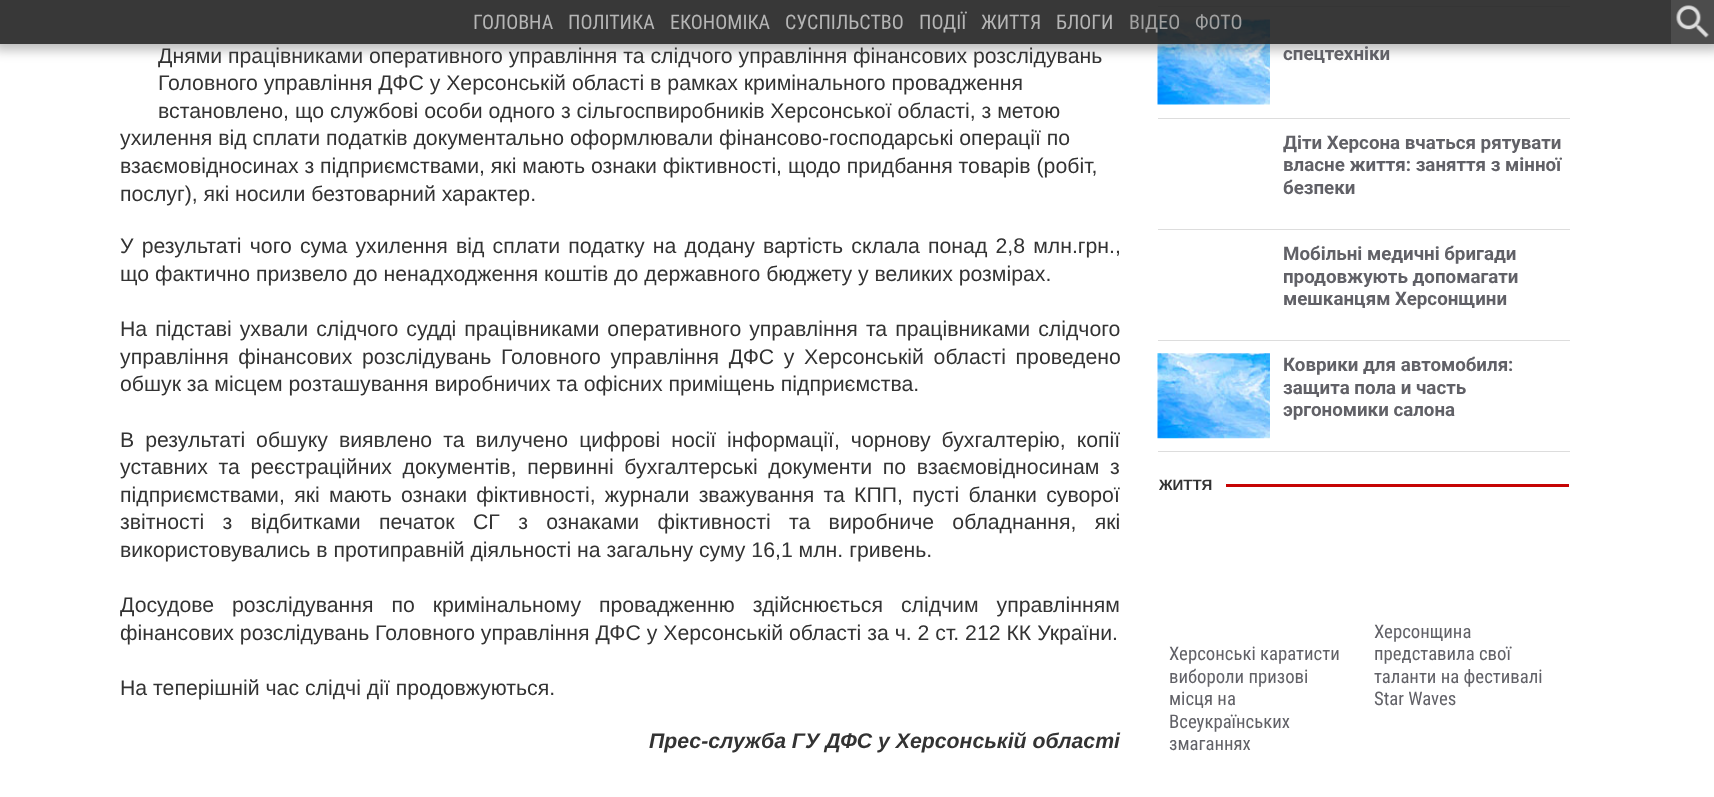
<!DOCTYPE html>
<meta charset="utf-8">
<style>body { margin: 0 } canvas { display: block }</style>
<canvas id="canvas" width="1714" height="797"></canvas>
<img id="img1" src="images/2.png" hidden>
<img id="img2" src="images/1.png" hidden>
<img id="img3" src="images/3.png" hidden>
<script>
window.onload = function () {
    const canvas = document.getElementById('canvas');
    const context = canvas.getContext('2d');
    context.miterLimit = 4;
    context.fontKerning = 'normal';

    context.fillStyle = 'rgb(255, 255, 255)';
    context.fillRect(0, 0, 1714, 797);
    context.fillStyle = 'rgb(221, 221, 221)';
    context.fillRect(1158, 6, 412, 1);
    context.drawImage(document.getElementById('img1'), 1157, 19, 113, 86);
    context.save();
    context.beginPath();
    context.moveTo(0, 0);
    context.lineTo(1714, 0);
    context.lineTo(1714, 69);
    context.lineTo(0, 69);
    context.closePath();
    context.moveTo(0, 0);
    context.lineTo(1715, 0);
    context.lineTo(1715, 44);
    context.lineTo(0, 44);
    context.closePath();
    context.clip('evenodd');
    context.fillStyle = 'rgba(0, 0, 0, 0.27)';
    context.filter = 'blur(6px)';
    context.beginPath();
    context.rect(-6, -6, 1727, 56);
    context.fill();
    context.filter = 'none';
    context.restore();
    context.fillStyle = 'rgba(34, 34, 34, 0.9)';
    context.fillRect(0, 0, 1671, 44);
    context.fillStyle = 'rgb(76, 76, 76)';
    context.fillRect(1671, 0, 43, 44);
    context.drawImage(document.getElementById('img2'), 1676, 5, 34, 33);
    context.fillStyle = 'rgb(221, 221, 221)';
    context.fillRect(1158, 118, 412, 1);
    context.fillRect(1158, 229, 412, 1);
    context.fillRect(1158, 340, 412, 1);
    context.drawImage(document.getElementById('img3'), 1157, 353, 113, 86);
    context.fillRect(1158, 451, 412, 1);
    context.fillStyle = 'rgb(198, 3, 4)';
    context.fillRect(1226, 484, 343, 3);
    context.font = '20px Roboto Condensed';
    context.fillStyle = 'rgb(181, 181, 181)';
    context.fillText('ГОЛОВНА', 473, 29);
    context.fillText('ПОЛІТИКА', 568, 29);
    context.fillText('ЕКОНОМІКА', 670, 29);
    context.fillText('СУСПІЛЬСТВО', 785, 29);
    context.fillText('ПОДІЇ', 919, 29);
    context.fillText('ЖИТТЯ', 981, 29);
    context.fillText('БЛОГИ', 1056, 29);
    context.fillStyle = 'rgb(161, 161, 161)';
    context.fillText('ВІДЕО', 1129, 29);
    context.fillText('ФОТО', 1195, 29);
    context.font = '21.25px Liberation Sans';
    context.fillStyle = 'rgb(51, 51, 51)';
    context.fillText('Днями працівниками оперативного управління та слідчого управління фінансових розслідувань', 158, 63);
    context.fillText('Головного управління ДФС у Херсонській області в рамках кримінального провадження', 158, 90);
    context.fillText('встановлено, що службові особи одного з сільгоспвиробників Херсонської області, з метою', 158, 118);
    context.fillText('ухилення від сплати податків документально оформлювали фінансово-господарські операції по', 120, 145);
    context.fillText('взаємовідносинах з підприємствами, які мають ознаки фіктивності, щодо придбання товарів (робіт,', 120, 173);
    context.fillText('послуг), які носили безтоварний характер.', 120, 201);
    context.wordSpacing = '2.25px';
    context.fillText('У результаті чого сума ухилення від сплати податку на додану вартість склала понад 2,8 млн.грн.,', 120, 253);
    context.wordSpacing = '0px';
    context.fillText('що фактично призвело до ненадходження коштів до державного бюджету у великих розмірах.', 120, 281);
    context.wordSpacing = '2.1px';
    context.fillText('На підставі ухвали слідчого судді працівниками оперативного управління та працівниками слідчого', 120, 336);
    context.wordSpacing = '3.75px';
    context.fillText('управління фінансових розслідувань Головного управління ДФС у Херсонській області проведено', 120, 364);
    context.wordSpacing = '0px';
    context.fillText('обшук за місцем розташування виробничих та офісних приміщень підприємства.', 120, 391);
    context.wordSpacing = '5.1px';
    context.fillText('В результаті обшуку виявлено та вилучено цифрові носії інформації, чорнову бухгалтерію, копії', 120, 447);
    context.wordSpacing = '4.75px';
    context.fillText('уставних та реєстраційних документів, первинні бухгалтерські документи по взаємовідносинам з', 120, 474);
    context.wordSpacing = '3.4px';
    context.fillText('підприємствами, які мають ознаки фіктивності, журнали зважування та КПП, пусті бланки суворої', 120, 502);
    context.wordSpacing = '12.4px';
    context.fillText('звітності з відбитками печаток СГ з ознаками фіктивності та виробниче обладнання, які', 120, 529);
    context.wordSpacing = '0px';
    context.fillText('використовувались в протиправній діяльності на загальну суму 16,1 млн. гривень.', 120, 557);
    context.wordSpacing = '12px';
    context.fillText('Досудове розслідування по кримінальному провадженню здійснюється слідчим управлінням', 120, 612);
    context.wordSpacing = '0px';
    context.fillText('фінансових розслідувань Головного управління ДФС у Херсонській області за ч. 2 ст. 212 КК України.', 120, 640);
    context.fillText('На теперішній час слідчі дії продовжуються.', 120, 695);
    context.font = 'italic bold 21.25px Liberation Sans';
    context.fillText('Прес-служба ГУ ДФС у Херсонській області', 649, 748);
    context.font = 'bold 18.75px Roboto';
    context.fillStyle = 'rgb(97, 97, 103)';
    context.fillText('спецтехніки', 1283, 60);
    context.fillText('Діти Херсона вчаться рятувати', 1283, 149);
    context.fillText('власне життя: заняття з мінної', 1283, 171);
    context.fillText('безпеки', 1283, 194);
    context.fillText('Мобільні медичні бригади', 1283, 260);
    context.fillText('продовжують допомагати', 1283, 283);
    context.fillText('мешканцям Херсонщини', 1283, 305);
    context.fillText('Коврики для автомобиля:', 1283, 371);
    context.fillText('защита пола и часть', 1283, 394);
    context.fillText('эргономики салона', 1283, 416);
    context.font = 'bold 15px Liberation Sans';
    context.fillStyle = 'rgb(51, 51, 51)';
    context.fillText('ЖИТТЯ', 1159, 490);
    context.font = '18.75px Roboto Condensed';
    context.fillStyle = 'rgb(97, 97, 103)';
    context.fillText('Херсонські каратисти', 1169, 660);
    context.fillText('вибороли призові', 1169, 683);
    context.fillText('місця на', 1169, 705);
    context.fillText('Всеукраїнських', 1169, 728);
    context.fillText('змаганнях', 1169, 750);
    context.fillText('Херсонщина', 1374, 638);
    context.fillText('представила свої', 1374, 660);
    context.fillText('таланти на фестивалі', 1374, 683);
    context.fillText('Star Waves', 1374, 705);
};
</script>
